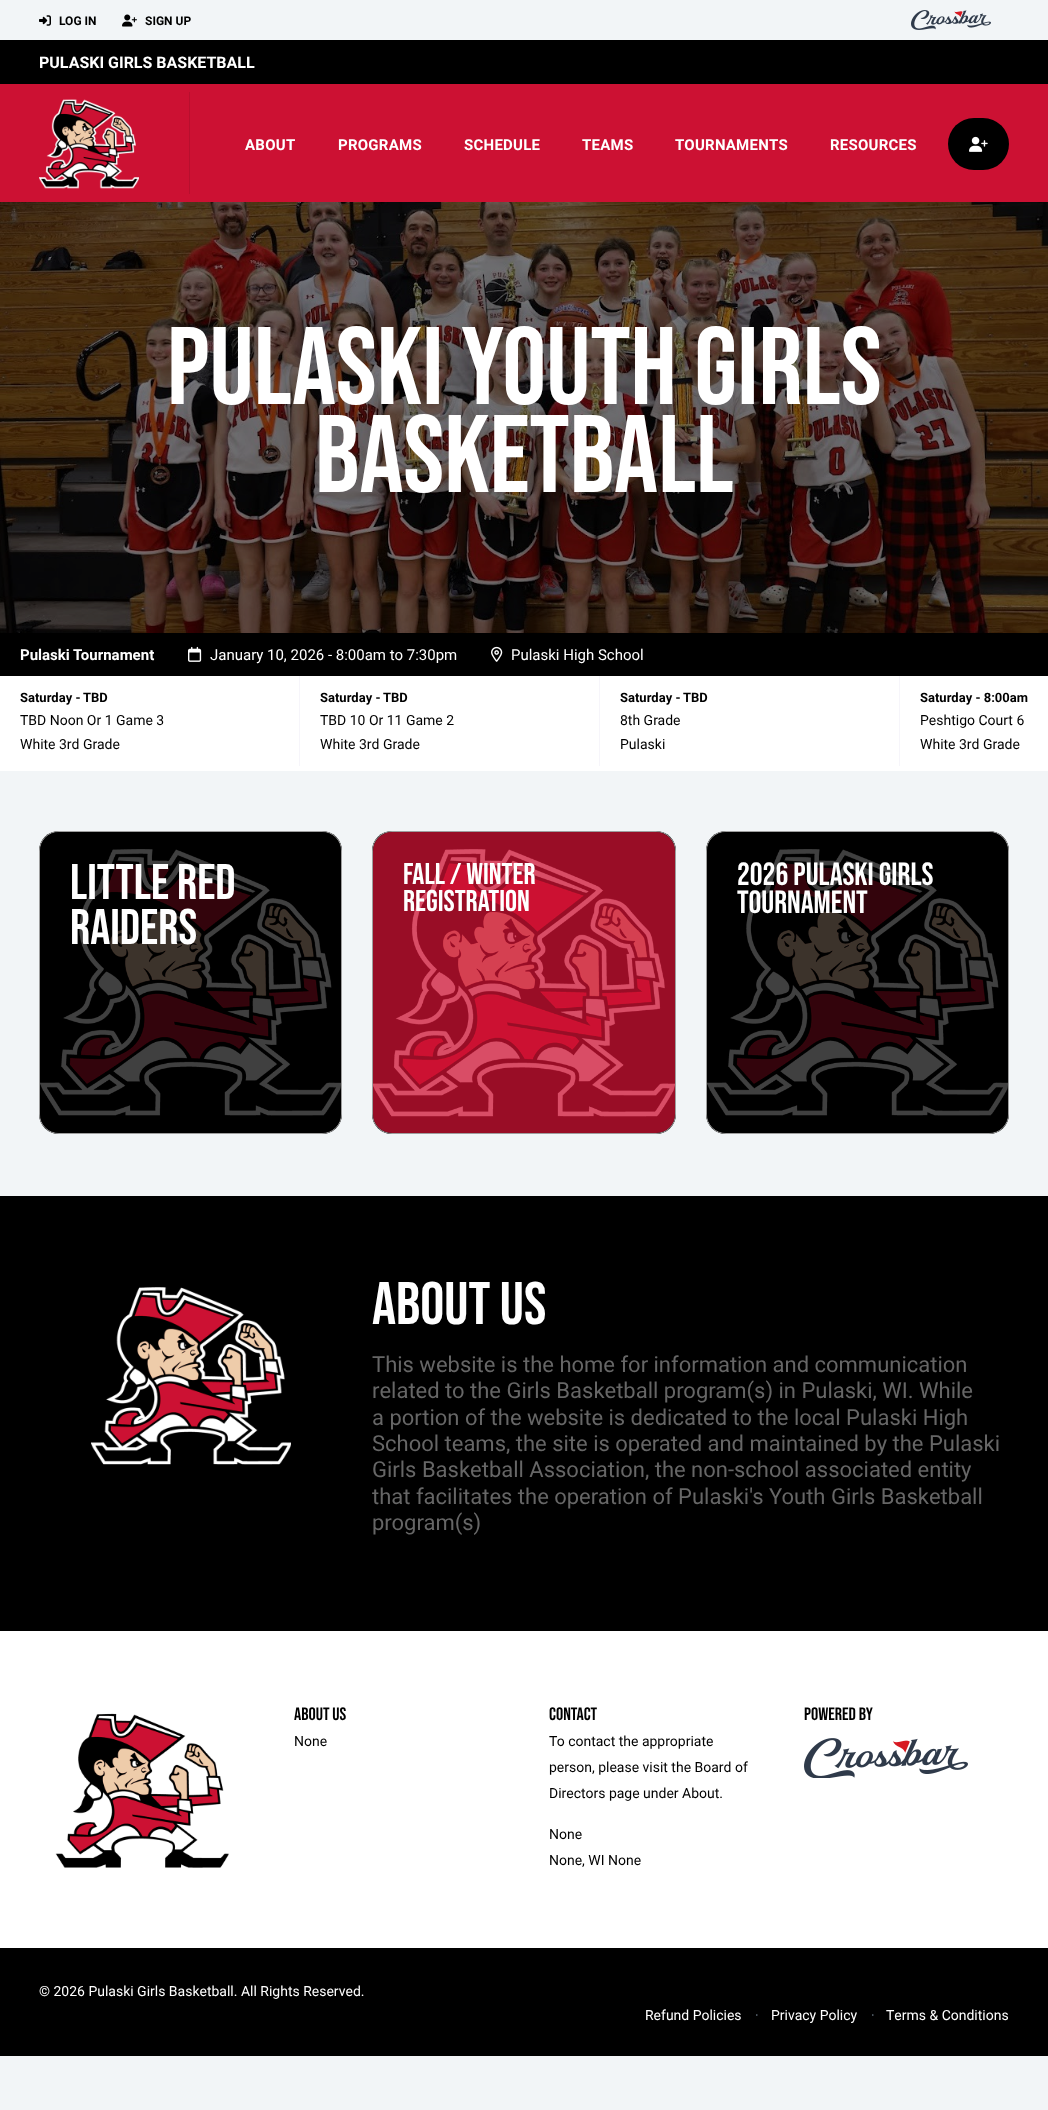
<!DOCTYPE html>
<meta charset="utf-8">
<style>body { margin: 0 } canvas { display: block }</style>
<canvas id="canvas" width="1048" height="2110"></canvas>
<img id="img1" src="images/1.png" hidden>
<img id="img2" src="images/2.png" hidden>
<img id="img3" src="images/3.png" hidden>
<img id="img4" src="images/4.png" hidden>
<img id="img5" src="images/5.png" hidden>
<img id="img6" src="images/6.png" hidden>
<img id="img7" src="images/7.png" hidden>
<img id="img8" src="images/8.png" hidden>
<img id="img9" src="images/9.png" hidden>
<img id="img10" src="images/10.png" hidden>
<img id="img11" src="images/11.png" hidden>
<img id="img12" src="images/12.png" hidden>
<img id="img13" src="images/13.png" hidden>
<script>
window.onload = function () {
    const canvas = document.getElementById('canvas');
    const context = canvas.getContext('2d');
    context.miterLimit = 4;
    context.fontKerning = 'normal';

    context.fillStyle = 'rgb(242, 245, 247)';
    context.fillRect(0, 0, 1048, 2110);
    context.drawImage(document.getElementById('img1'), 39, 15, 12, 11);
    context.drawImage(document.getElementById('img2'), 122, 14, 15, 13);
    context.drawImage(document.getElementById('img3'), 911, 10, 80, 20);
    context.fillStyle = 'rgb(0, 0, 0)';
    context.fillRect(0, 40, 1048, 44);
    context.fillStyle = 'rgb(204, 17, 51)';
    context.fillRect(0, 84, 1048, 118);
    context.fillStyle = 'rgb(184, 15, 46)';
    context.fillRect(189, 92, 1, 102);
    context.drawImage(document.getElementById('img4'), 39, 99, 100, 90);
    context.fillStyle = 'rgb(0, 0, 0)';
    context.beginPath();
    context.roundRect(948, 118, 61, 52, 26);
    context.fill();
    context.drawImage(document.getElementById('img5'), 969, 136, 19, 16);
    context.drawImage(document.getElementById('img6'), 0, 202, 1048, 431);
    context.fillRect(0, 633, 1048, 43);
    context.drawImage(document.getElementById('img7'), 188, 646, 14, 16);
    context.drawImage(document.getElementById('img8'), 491, 646, 12, 16);
    context.fillStyle = 'rgb(255, 255, 255)';
    context.fillRect(0, 676, 1048, 95);
    context.fillStyle = 'rgb(246, 245, 250)';
    context.fillRect(299, 676, 1, 90);
    context.fillRect(599, 676, 1, 90);
    context.fillRect(899, 676, 1, 90);
    context.fillStyle = 'rgb(0, 0, 0)';
    context.beginPath();
    context.roundRect(39, 831, 303, 303, 20);
    context.fill();
    context.drawImage(document.getElementById('img9'), 40, 849, 301, 267);
    context.beginPath();
    context.roundRect(39.5, 831.5, 302, 302, 19.5);
    context.strokeStyle = 'rgb(158, 158, 158)';
    context.stroke();
    context.fillStyle = 'rgba(0, 0, 0, 0.75)';
    context.beginPath();
    context.roundRect(40, 832, 301, 301, 19);
    context.fill();
    context.fillStyle = 'rgb(0, 0, 0)';
    context.beginPath();
    context.roundRect(372, 831, 304, 303, 20);
    context.fill();
    context.drawImage(document.getElementById('img10'), 373, 849, 302, 268);
    context.beginPath();
    context.roundRect(372.5, 831.5, 303, 302, 19.5);
    context.stroke();
    context.fillStyle = 'rgba(204, 17, 51, 0.75)';
    context.beginPath();
    context.roundRect(373, 832, 302, 301, 19);
    context.fill();
    context.fillStyle = 'rgb(0, 0, 0)';
    context.beginPath();
    context.roundRect(706, 831, 303, 303, 20);
    context.fill();
    context.drawImage(document.getElementById('img9'), 707, 849, 301, 267);
    context.beginPath();
    context.roundRect(706.5, 831.5, 302, 302, 19.5);
    context.stroke();
    context.fillStyle = 'rgba(0, 0, 0, 0.75)';
    context.beginPath();
    context.roundRect(707, 832, 301, 301, 19);
    context.fill();
    context.fillStyle = 'rgb(0, 0, 0)';
    context.fillRect(0, 1196, 1048, 435);
    context.drawImage(document.getElementById('img11'), 91, 1287, 200, 178);
    context.fillStyle = 'rgb(255, 255, 255)';
    context.fillRect(0, 1631, 1048, 317);
    context.drawImage(document.getElementById('img12'), 55, 1713, 174, 155);
    context.drawImage(document.getElementById('img13'), 804, 1738, 164, 40);
    context.fillStyle = 'rgb(0, 0, 0)';
    context.fillRect(0, 1948, 1048, 108);
    context.font = 'bold 12px Roboto';
    context.fillText('LOG IN', 59, 25);
    context.fillText('SIGN UP', 145, 25);
    context.font = 'bold 16px Roboto';
    context.fillStyle = 'rgb(255, 255, 255)';
    context.fillText('PULASKI GIRLS BASKETBALL', 39, 68);
    context.letterSpacing = '0.25px';
    context.font = 'bold 15px Roboto';
    context.fillText('ABOUT', 245, 150);
    context.fillText('PROGRAMS', 338, 150);
    context.fillText('SCHEDULE', 464, 150);
    context.fillText('TEAMS', 582, 150);
    context.fillText('TOURNAMENTS', 675, 150);
    context.fillText('RESOURCES', 830, 150);
    context.letterSpacing = '0px';
    context.font = '110px Bebas Neue';
    context.fillText('PULASKI YOUTH GIRLS', 167, 404);
    context.fillText('BASKETBALL', 315, 492);
    context.font = 'bold 15px Roboto';
    context.fillText('Pulaski Tournament', 20, 660);
    context.font = '15px Roboto';
    context.fillText('January 10, 2026 - 8:00am to 7:30pm', 210, 660);
    context.fillText('Pulaski High School', 511, 660);
    context.font = 'bold 13px Roboto';
    context.fillStyle = 'rgb(0, 0, 0)';
    context.fillText('Saturday -', 20, 702);
    context.fillText('TBD', 83, 702);
    context.font = '14px Roboto';
    context.fillText('TBD Noon Or 1 Game 3', 20, 725);
    context.fillText('White 3rd Grade', 20, 749);
    context.font = 'bold 13px Roboto';
    context.fillText('Saturday -', 320, 702);
    context.fillText('TBD', 383, 702);
    context.font = '14px Roboto';
    context.fillText('TBD 10 Or 11 Game 2', 320, 725);
    context.fillText('White 3rd Grade', 320, 749);
    context.font = 'bold 13px Roboto';
    context.fillText('Saturday -', 620, 702);
    context.fillText('TBD', 683, 702);
    context.font = '14px Roboto';
    context.fillText('8th Grade', 620, 725);
    context.fillText('Pulaski', 620, 749);
    context.font = 'bold 13px Roboto';
    context.fillText('Saturday - 8:00am', 920, 702);
    context.font = '14px Roboto';
    context.fillText('Peshtigo Court 6', 920, 725);
    context.fillText('White 3rd Grade', 920, 749);
    context.font = '50px Bebas Neue';
    context.fillStyle = 'rgb(255, 255, 255)';
    context.fillText('LITTLE RED', 70, 899);
    context.fillText('RAIDERS', 70, 944);
    context.font = '30px Bebas Neue';
    context.fillText('FALL / WINTER', 403, 884);
    context.fillText('REGISTRATION', 403, 911);
    context.font = '32px Bebas Neue';
    context.fillText('2026 PULASKI GIRLS', 737, 885);
    context.fillText('TOURNAMENT', 737, 913);
    context.font = '60px Bebas Neue';
    context.fillText('ABOUT US', 372, 1324);
    context.font = '22px Roboto';
    context.fillStyle = 'rgb(102, 102, 102)';
    context.fillText('This website is the home for information and communication', 372, 1372);
    context.fillText('related to the Girls Basketball program(s) in Pulaski, WI. While', 372, 1398);
    context.fillText('a portion of the website is dedicated to the local Pulaski High', 372, 1425);
    context.fillText('School teams, the site is operated and maintained by the Pulaski', 372, 1451);
    context.fillText('Girls Basketball Association, the non-school associated entity', 372, 1477);
    context.fillText('that facilitates the operation of Pulaski\'s Youth Girls Basketball', 372, 1504);
    context.fillText('program(s)', 372, 1530);
    context.font = '18px Bebas Neue';
    context.fillStyle = 'rgb(0, 0, 0)';
    context.fillText('ABOUT US', 294, 1720);
    context.font = '14px Roboto';
    context.fillText('None', 294, 1746);
    context.font = '18px Bebas Neue';
    context.fillText('CONTACT', 549, 1720);
    context.font = '14px Roboto';
    context.fillText('To contact the appropriate', 549, 1746);
    context.fillText('person, please visit the Board of', 549, 1772);
    context.fillText('Directors page under About.', 549, 1798);
    context.fillText('None', 549, 1839);
    context.fillText('None, WI None', 549, 1865);
    context.font = '18px Bebas Neue';
    context.fillText('POWERED BY', 804, 1720);
    context.font = '14px Roboto';
    context.fillStyle = 'rgb(255, 255, 255)';
    context.fillText('© 2026 Pulaski Girls Basketball. All Rights Reserved.', 39, 1996);
    context.fillText('Refund Policies', 645, 2020);
    context.fillStyle = 'rgb(112, 126, 140)';
    context.fillText('·', 755, 2020);
    context.fillStyle = 'rgb(255, 255, 255)';
    context.fillText('Privacy Policy', 771, 2020);
    context.fillStyle = 'rgb(112, 126, 140)';
    context.fillText('·', 871, 2020);
    context.fillStyle = 'rgb(255, 255, 255)';
    context.fillText('Terms & Conditions', 886, 2020);
};
</script>
